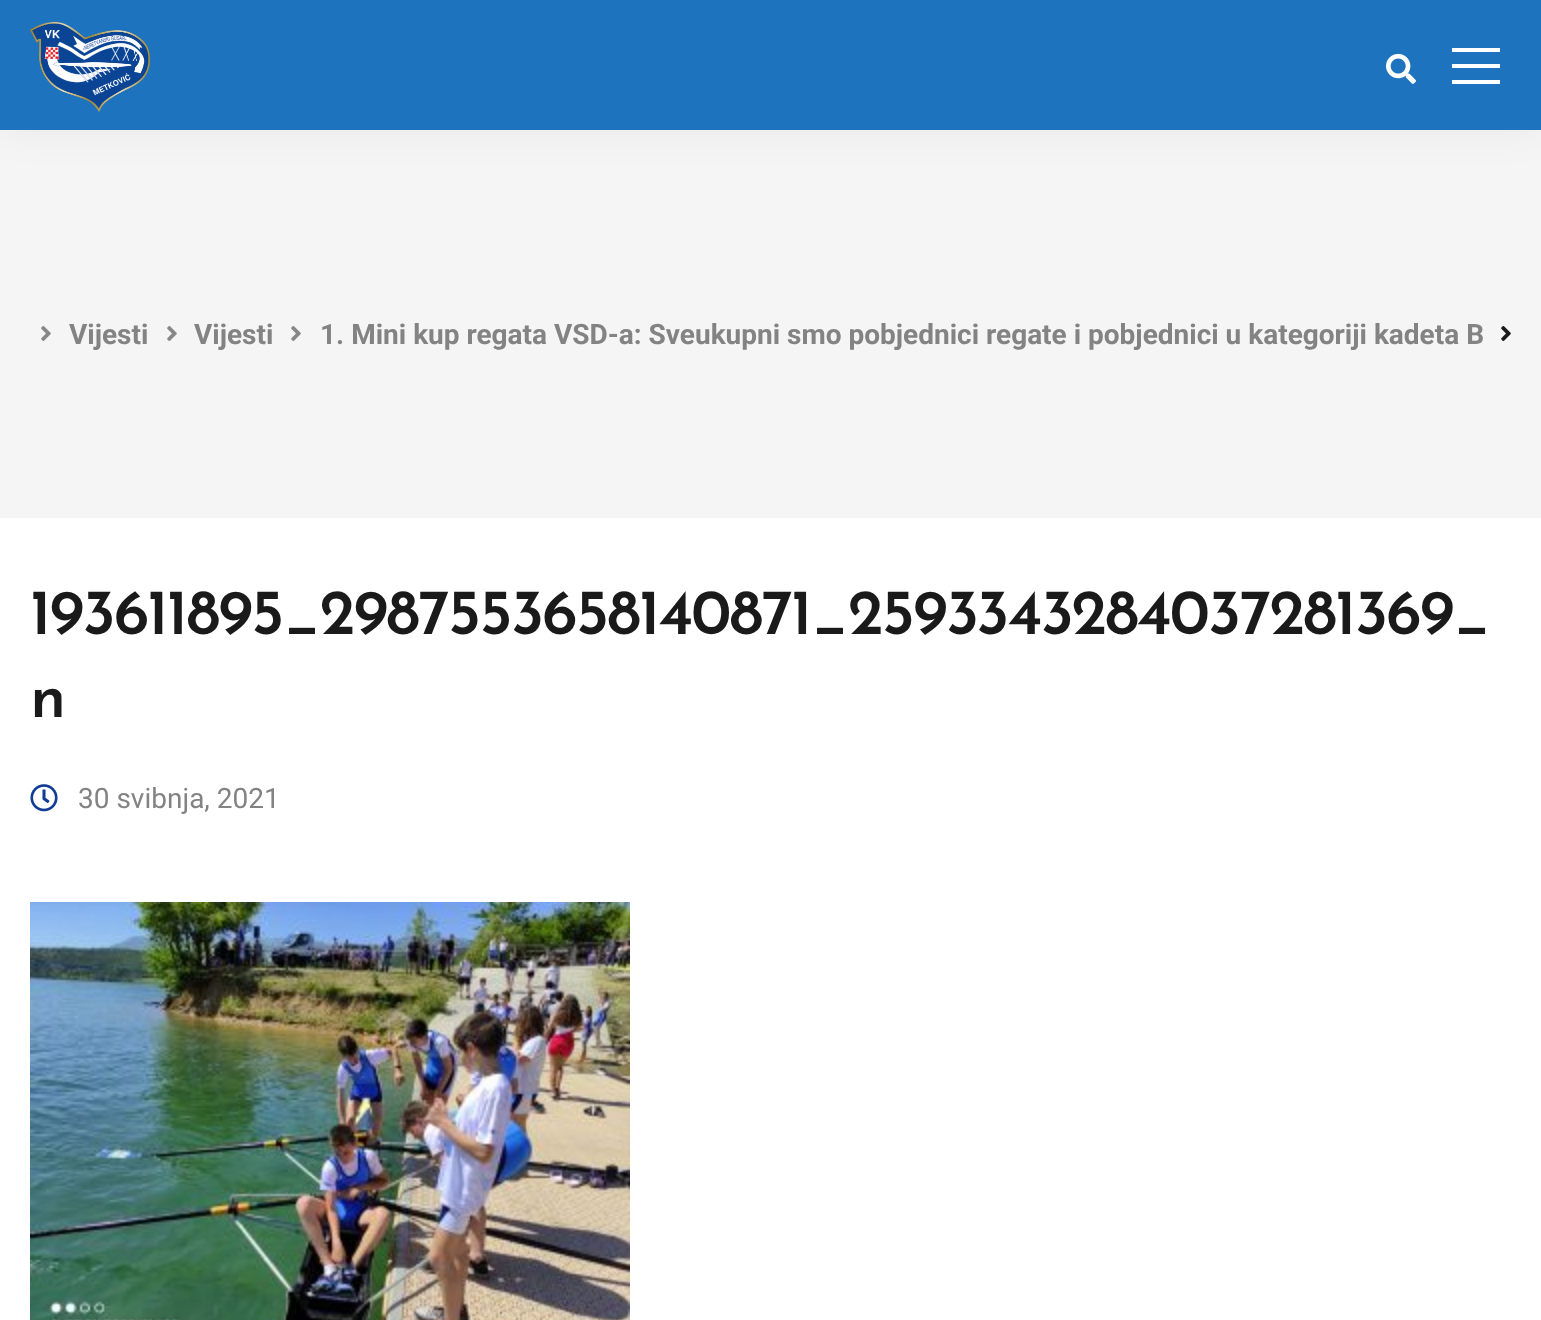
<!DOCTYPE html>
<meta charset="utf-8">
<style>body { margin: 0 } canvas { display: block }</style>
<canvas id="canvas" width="1541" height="1320"></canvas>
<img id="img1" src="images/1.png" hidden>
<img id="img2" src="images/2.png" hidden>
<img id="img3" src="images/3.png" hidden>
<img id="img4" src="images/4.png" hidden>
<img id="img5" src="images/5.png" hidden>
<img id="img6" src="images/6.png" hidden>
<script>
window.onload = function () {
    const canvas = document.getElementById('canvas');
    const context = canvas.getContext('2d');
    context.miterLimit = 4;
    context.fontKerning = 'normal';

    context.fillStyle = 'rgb(255, 255, 255)';
    context.fillRect(0, 0, 1541, 1320);
    context.fillStyle = 'rgb(245, 245, 245)';
    context.fillRect(0, 130, 1541, 388);
    context.fillStyle = 'rgba(0, 0, 0, 0.05)';
    context.filter = 'blur(20px)';
    context.beginPath();
    context.rect(0, 0, 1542, 130);
    context.fill();
    context.filter = 'none';
    context.fillStyle = 'rgb(30, 115, 190)';
    context.fillRect(0, 0, 1541, 130);
    context.drawImage(document.getElementById('img1'), 30, 21, 120, 91);
    context.drawImage(document.getElementById('img2'), 1386, 53, 30, 31);
    context.fillStyle = 'rgb(255, 255, 255)';
    context.fillRect(1452, 80, 48, 4);
    context.fillRect(1452, 48, 48, 4);
    context.fillRect(1452, 64, 48, 4);
    context.drawImage(document.getElementById('img3'), 41, 326, 10, 15);
    context.drawImage(document.getElementById('img3'), 167, 326, 10, 15);
    context.drawImage(document.getElementById('img3'), 291, 326, 10, 15);
    context.drawImage(document.getElementById('img4'), 1501, 326, 10, 15);
    context.drawImage(document.getElementById('img5'), 30, 784, 28, 28);
    context.drawImage(document.getElementById('img6'), 30, 902, 600, 418);
    context.font = 'bold 28px Roboto';
    context.fillStyle = 'rgb(131, 131, 131)';
    context.fillText('Vijesti', 69, 344);
    context.fillText('Vijesti', 194, 344);
    context.fillText('1. Mini kup regata VSD-a: Sveukupni smo pobjednici regate i pobjednici u kategoriji kadeta B', 320, 344);
    context.letterSpacing = '-1.9px';
    context.font = '100 64px Josefin Sans';
    context.fillStyle = 'rgb(26, 26, 26)';
    context.fillText('193611895_2987553658140871_2593343284037281369_', 30, 634);
    context.fillText('n', 30, 717);
    context.letterSpacing = '0px';
    context.font = '28px Roboto';
    context.fillStyle = 'rgb(131, 131, 131)';
    context.fillText('30 svibnja, 2021', 78, 808);
};
</script>
